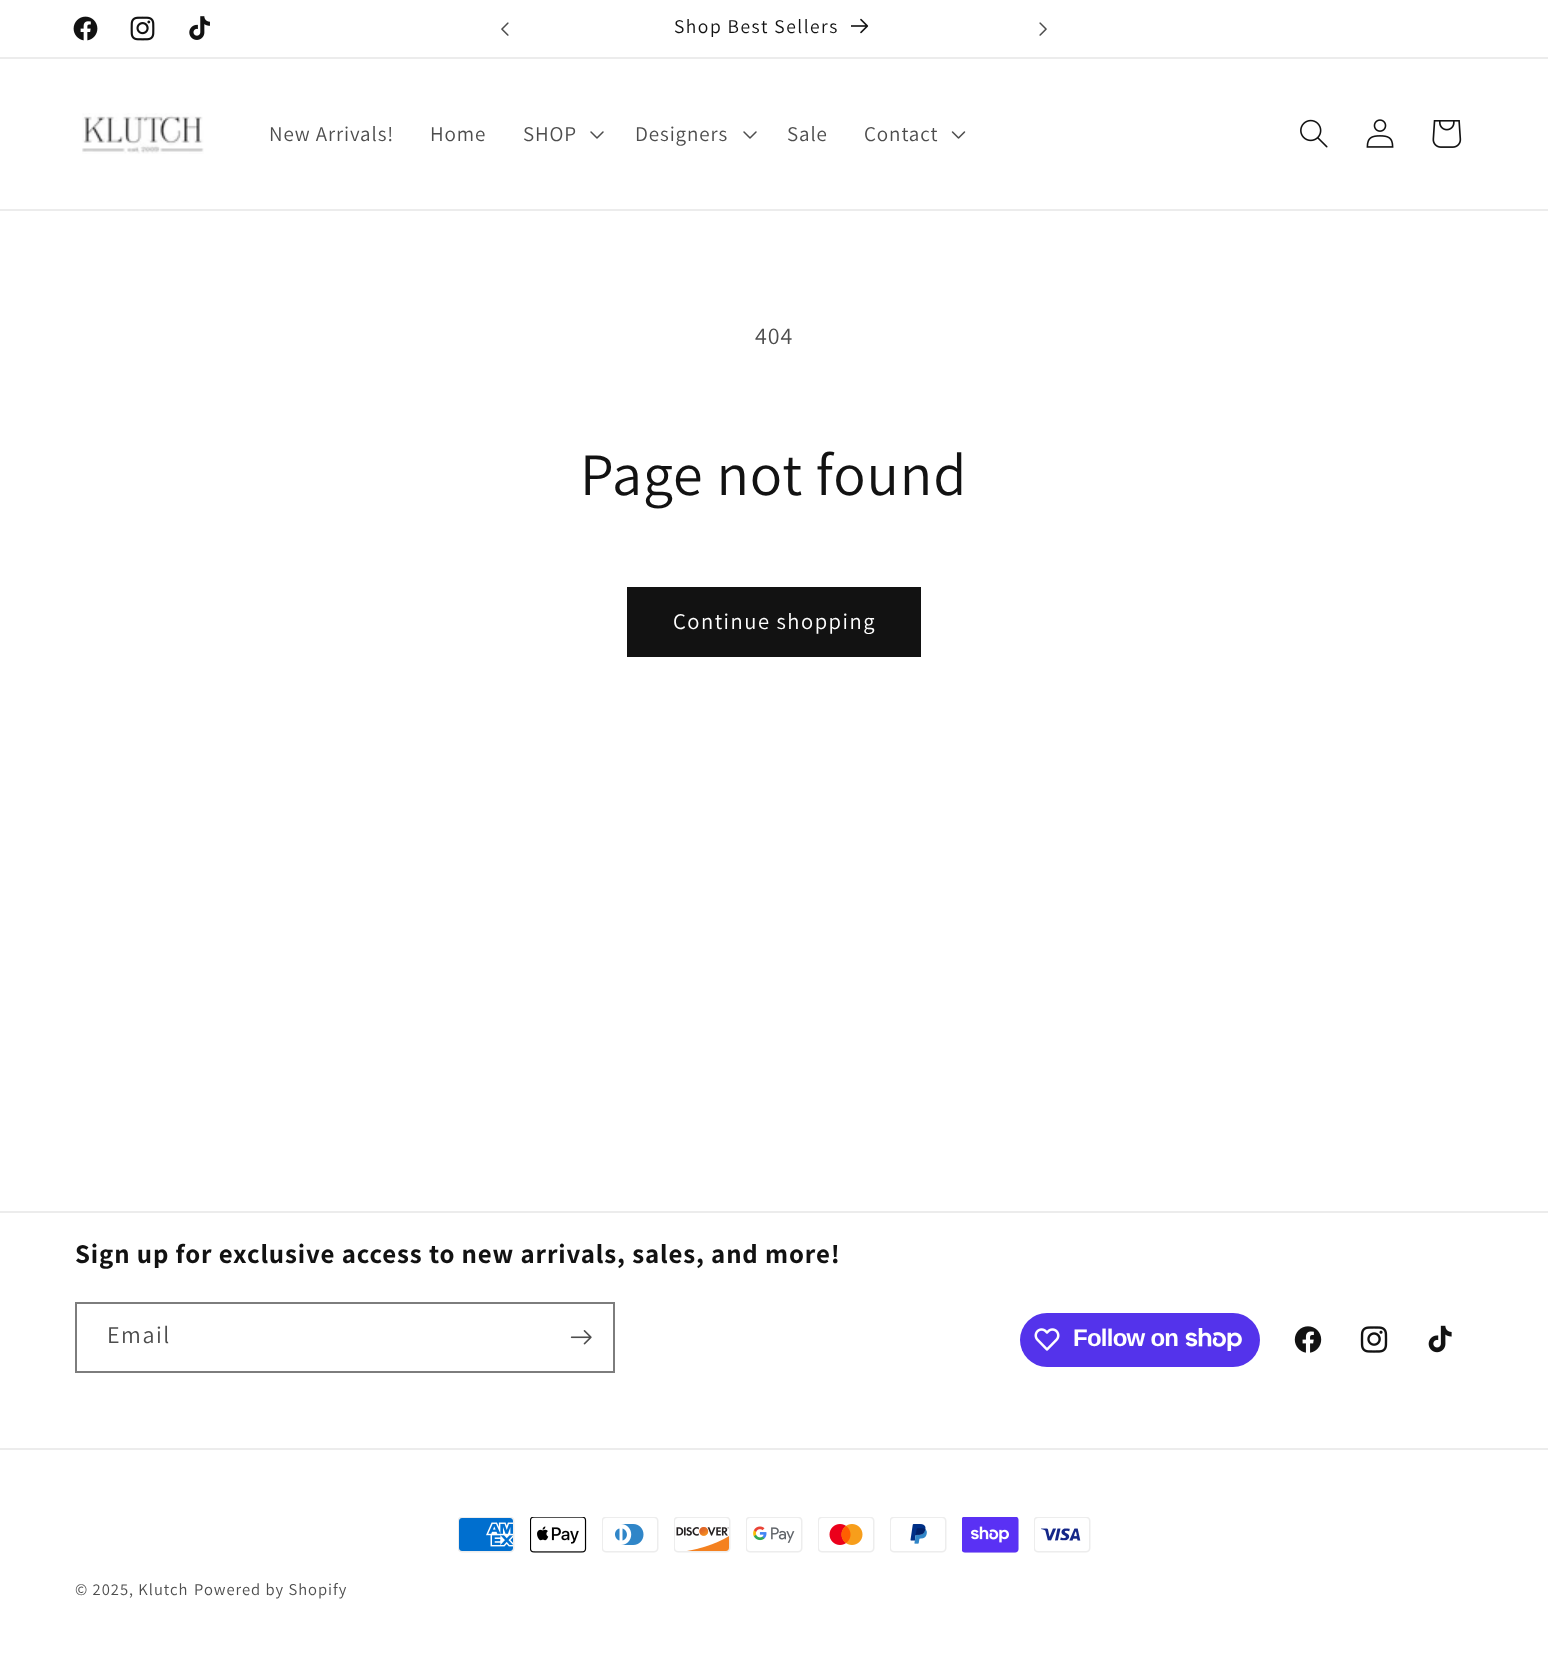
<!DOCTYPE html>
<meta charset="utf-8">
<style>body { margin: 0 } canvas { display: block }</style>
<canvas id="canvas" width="1548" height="1658"></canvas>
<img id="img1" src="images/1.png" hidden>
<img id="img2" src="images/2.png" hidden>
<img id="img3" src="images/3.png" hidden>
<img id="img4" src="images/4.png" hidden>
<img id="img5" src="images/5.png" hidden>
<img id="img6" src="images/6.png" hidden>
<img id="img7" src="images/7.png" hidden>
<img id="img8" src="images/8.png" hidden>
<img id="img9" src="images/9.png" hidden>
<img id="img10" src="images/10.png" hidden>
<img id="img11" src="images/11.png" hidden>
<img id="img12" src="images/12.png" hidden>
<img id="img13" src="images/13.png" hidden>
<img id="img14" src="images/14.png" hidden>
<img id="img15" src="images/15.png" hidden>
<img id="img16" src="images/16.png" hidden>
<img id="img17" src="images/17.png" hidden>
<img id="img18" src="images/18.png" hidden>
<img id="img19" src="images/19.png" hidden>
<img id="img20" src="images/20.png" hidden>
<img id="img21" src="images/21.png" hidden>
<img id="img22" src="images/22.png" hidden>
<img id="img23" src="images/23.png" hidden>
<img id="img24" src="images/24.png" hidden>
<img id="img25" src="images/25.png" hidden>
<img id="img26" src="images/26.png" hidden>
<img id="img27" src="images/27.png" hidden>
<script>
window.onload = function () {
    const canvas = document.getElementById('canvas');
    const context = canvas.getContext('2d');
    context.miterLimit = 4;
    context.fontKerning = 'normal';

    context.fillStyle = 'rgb(255, 255, 255)';
    context.fillRect(0, 0, 1548, 1658);
    context.fillStyle = 'rgb(236, 236, 236)';
    context.fillRect(0, 57, 1548, 2);
    context.drawImage(document.getElementById('img1'), 73, 16, 25, 25);
    context.drawImage(document.getElementById('img2'), 130, 16, 25, 25);
    context.drawImage(document.getElementById('img3'), 189, 16, 21, 24);
    context.drawImage(document.getElementById('img4'), 501, 22, 8, 14);
    context.drawImage(document.getElementById('img5'), 851, 18, 18, 16);
    context.drawImage(document.getElementById('img6'), 1039, 22, 8, 14);
    context.fillRect(0, 209, 1548, 2);
    context.drawImage(document.getElementById('img7'), 82, 113, 122, 41);
    context.drawImage(document.getElementById('img8'), 590, 131, 14, 8);
    context.drawImage(document.getElementById('img8'), 743, 131, 14, 8);
    context.drawImage(document.getElementById('img9'), 951, 131, 15, 8);
    context.drawImage(document.getElementById('img10'), 1300, 119, 28, 29);
    context.drawImage(document.getElementById('img11'), 1366, 119, 28, 29);
    context.drawImage(document.getElementById('img12'), 1432, 120, 30, 28);
    context.fillStyle = 'rgb(18, 18, 18)';
    context.fillRect(627, 587, 294, 70);
    context.fillStyle = 'rgb(236, 236, 236)';
    context.fillRect(0, 1211, 1548, 2);
    context.strokeStyle = 'rgb(125, 125, 125)';
    context.lineWidth = 2;
    context.strokeRect(76, 1303, 538, 69);
    context.drawImage(document.getElementById('img13'), 570, 1330, 22, 15);
    context.fillStyle = 'rgb(84, 51, 235)';
    context.beginPath();
    context.roundRect(1020, 1313, 240, 54, 27);
    context.fill();
    context.drawImage(document.getElementById('img14'), 1034, 1328, 26, 23);
    context.drawImage(document.getElementById('img15'), 1185, 1328, 57, 23);
    context.drawImage(document.getElementById('img16'), 1294, 1326, 28, 27);
    context.drawImage(document.getElementById('img17'), 1360, 1326, 28, 27);
    context.drawImage(document.getElementById('img18'), 1428, 1325, 24, 28);
    context.fillStyle = 'rgb(236, 236, 236)';
    context.fillRect(0, 1448, 1548, 2);
    context.drawImage(document.getElementById('img19'), 458, 1517, 57, 36);
    context.drawImage(document.getElementById('img20'), 530, 1517, 57, 36);
    context.drawImage(document.getElementById('img21'), 602, 1517, 57, 36);
    context.drawImage(document.getElementById('img22'), 674, 1517, 57, 36);
    context.drawImage(document.getElementById('img23'), 746, 1517, 57, 36);
    context.drawImage(document.getElementById('img24'), 818, 1517, 57, 36);
    context.drawImage(document.getElementById('img25'), 890, 1517, 57, 36);
    context.drawImage(document.getElementById('img26'), 962, 1517, 57, 36);
    context.drawImage(document.getElementById('img27'), 1034, 1517, 57, 36);
    context.letterSpacing = '1.5px';
    context.font = '19.5px Assistant';
    context.fillStyle = 'rgb(18, 18, 18)';
    context.fillText('Shop Best Sellers', 674, 33);
    context.letterSpacing = '0.9px';
    context.font = '21px Assistant';
    context.fillStyle = 'rgb(77, 77, 77)';
    context.fillText('New Arrivals!', 269, 141);
    context.fillText('Home', 430, 141);
    context.fillText('SHOP', 523, 141);
    context.fillText('Designers', 635, 141);
    context.fillText('Sale', 787, 141);
    context.fillText('Contact', 864, 141);
    context.font = '24px Assistant';
    context.fillText('404', 755, 344);
    context.font = '60px Assistant';
    context.fillStyle = 'rgb(18, 18, 18)';
    context.fillText('Page not found', 580, 495);
    context.letterSpacing = '1.5px';
    context.font = '22.5px Assistant';
    context.fillStyle = 'rgb(255, 255, 255)';
    context.fillText('Continue shopping', 673, 629);
    context.letterSpacing = '0.9px';
    context.font = 'bold 27px Assistant';
    context.fillStyle = 'rgb(18, 18, 18)';
    context.fillText('Sign up for exclusive access to new arrivals, sales, and more!', 75, 1263);
    context.letterSpacing = '1.5px';
    context.font = '24px Assistant';
    context.fillStyle = 'rgb(77, 77, 77)';
    context.fillText('Email', 107, 1343);
    context.letterSpacing = '-0.75px';
    context.font = 'bold 24px Liberation Sans';
    context.fillStyle = 'rgb(255, 255, 255)';
    context.fillText('Follow on', 1073, 1346);
    context.letterSpacing = '1px';
    context.font = '16.5px Assistant';
    context.fillStyle = 'rgb(77, 77, 77)';
    context.fillText('© 2025, Klutch', 75, 1595);
    context.fillText('Powered by Shopify', 194, 1595);
};
</script>
